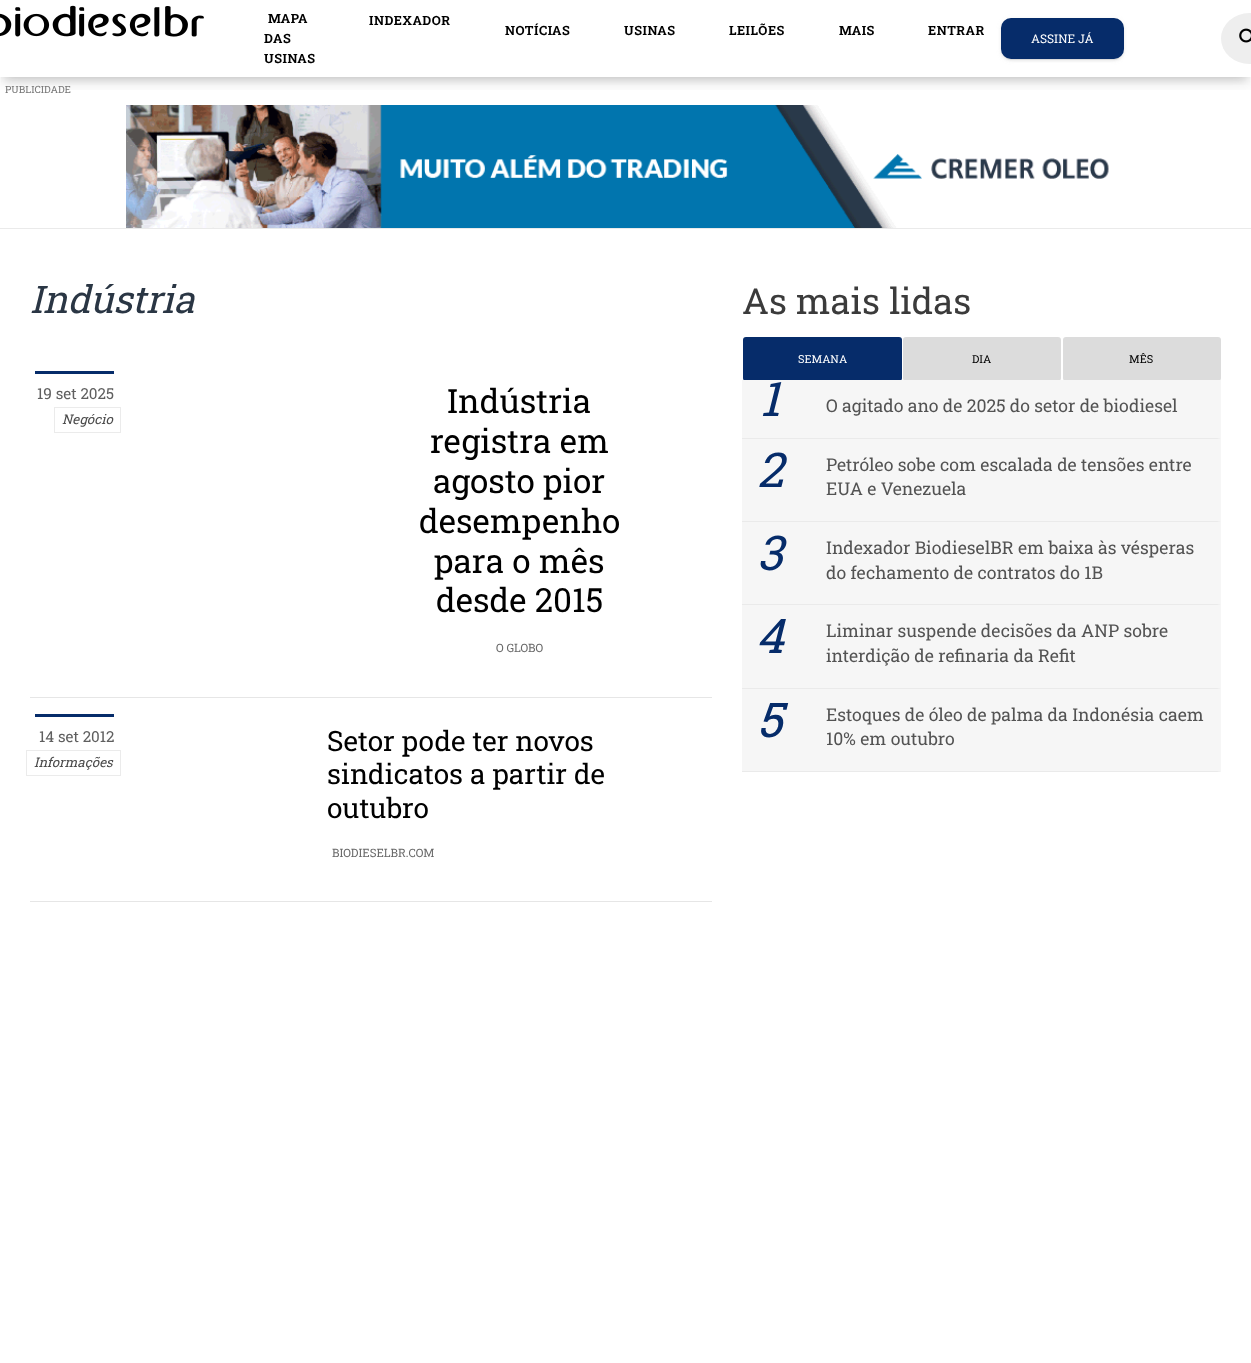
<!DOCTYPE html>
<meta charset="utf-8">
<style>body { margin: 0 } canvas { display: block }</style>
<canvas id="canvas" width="1251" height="1363"></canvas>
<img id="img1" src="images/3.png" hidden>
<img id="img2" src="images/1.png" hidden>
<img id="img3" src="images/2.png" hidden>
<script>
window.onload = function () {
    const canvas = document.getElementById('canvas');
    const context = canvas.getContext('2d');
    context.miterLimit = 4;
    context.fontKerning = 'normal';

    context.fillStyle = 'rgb(255, 255, 255)';
    context.fillRect(0, 0, 1251, 1363);
    context.save();
    context.beginPath();
    context.rect(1, 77, 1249, 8);
    context.clip();
    context.fillStyle = 'rgba(0, 0, 0, 0.15)';
    context.filter = 'blur(5px)';
    context.beginPath();
    context.rect(5, 12, 1241, 67);
    context.fill();
    context.filter = 'none';
    context.restore();
    context.drawImage(document.getElementById('img1'), 126, 105, 983, 123);
    context.save();
    context.beginPath();
    context.rect(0, 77, 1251, 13);
    context.clip();
    context.fillStyle = 'rgba(0, 0, 0, 0.12)';
    context.filter = 'blur(9px)';
    context.beginPath();
    context.rect(0, 4, 1251, 77);
    context.fill();
    context.filter = 'none';
    context.restore();
    context.drawImage(document.getElementById('img2'), 0, 5, 204, 32);
    context.fillStyle = 'rgb(238, 238, 238)';
    context.beginPath();
    context.ellipse(1249.5, 38.5, 28.5, 25.5, 0, 0, 2 * Math.PI);
    context.fill();
    context.drawImage(document.getElementById('img3'), 1239, 28, 12, 15);
    context.fillStyle = 'rgba(153, 153, 153, 0.12)';
    context.filter = 'blur(2.5px)';
    context.beginPath();
    context.roundRect(1001, 19, 123, 41, 10);
    context.fill();
    context.filter = 'none';
    context.fillStyle = 'rgba(153, 153, 153, 0.2)';
    context.filter = 'blur(0.5px)';
    context.beginPath();
    context.roundRect(1003, 23, 119, 37, 8);
    context.fill();
    context.filter = 'none';
    context.fillStyle = 'rgba(153, 153, 153, 0.14)';
    context.filter = 'blur(1px)';
    context.beginPath();
    context.roundRect(1001, 20, 123, 41, 10);
    context.fill();
    context.filter = 'none';
    context.fillStyle = 'rgb(6, 44, 106)';
    context.beginPath();
    context.roundRect(1001, 18, 123, 41, 10);
    context.fill();
    context.fillStyle = 'rgb(234, 234, 234)';
    context.fillRect(0, 228, 1251, 1);
    context.fillStyle = 'rgb(6, 44, 106)';
    context.fillRect(35, 371, 79, 3);
    context.strokeStyle = 'rgb(235, 235, 235)';
    context.strokeRect(54.5, 407.5, 66, 25);
    context.fillStyle = 'rgb(230, 230, 230)';
    context.fillRect(30, 697, 682, 1);
    context.fillStyle = 'rgb(6, 44, 106)';
    context.fillRect(35, 714, 79, 3);
    context.strokeRect(26.5, 750.5, 94, 25);
    context.fillStyle = 'rgb(230, 230, 230)';
    context.fillRect(30, 901, 682, 1);
    context.fillStyle = 'rgb(6, 44, 106)';
    context.beginPath();
    context.roundRect(743, 337, 159, 44, 3);
    context.fill();
    context.fillStyle = 'rgb(220, 220, 220)';
    context.beginPath();
    context.roundRect(903, 337, 158, 44, 3);
    context.fill();
    context.beginPath();
    context.roundRect(1063, 337, 158, 44, 3);
    context.fill();
    context.fillStyle = 'rgb(246, 246, 246)';
    context.fillRect(742, 380, 479, 392);
    context.fillStyle = 'rgb(234, 234, 234)';
    context.beginPath();
    context.moveTo(1221, 439);
    context.lineTo(742, 439);
    context.lineTo(742, 438);
    context.lineTo(1217, 438);
    context.closePath();
    context.fill();
    context.beginPath();
    context.moveTo(1221, 522);
    context.lineTo(742, 522);
    context.lineTo(742, 521);
    context.lineTo(1217, 521);
    context.closePath();
    context.fill();
    context.beginPath();
    context.moveTo(1221, 605);
    context.lineTo(742, 605);
    context.lineTo(742, 604);
    context.lineTo(1217, 604);
    context.closePath();
    context.fill();
    context.beginPath();
    context.moveTo(1221, 689);
    context.lineTo(742, 689);
    context.lineTo(742, 688);
    context.lineTo(1217, 688);
    context.closePath();
    context.fill();
    context.beginPath();
    context.moveTo(1221, 772);
    context.lineTo(742, 772);
    context.lineTo(742, 771);
    context.lineTo(1217, 771);
    context.closePath();
    context.fill();
    context.letterSpacing = '0.5px';
    context.font = 'bold 12.75px Roboto Slab';
    context.fillStyle = 'rgb(0, 0, 0)';
    context.fillText('MAPA', 268, 23);
    context.fillText('DAS', 264, 43);
    context.fillText('USINAS', 264, 63);
    context.fillText('INDEXADOR', 369, 25);
    context.fillText('NOTÍCIAS', 505, 35);
    context.fillText('USINAS', 624, 35);
    context.fillText('LEILÕES', 729, 35);
    context.fillText('MAIS', 839, 35);
    context.fillText('ENTRAR', 928, 35);
    context.letterSpacing = '0px';
    context.font = '12px Roboto Slab';
    context.fillStyle = 'rgb(255, 255, 255)';
    context.fillText('ASSINE JÁ', 1031, 43);
    context.font = '10px Roboto Slab';
    context.fillStyle = 'rgb(119, 119, 119)';
    context.fillText('PUBLICIDADE', 5, 93);
    context.font = 'italic 38px Roboto Slab';
    context.fillStyle = 'rgb(42, 54, 68)';
    context.fillText('Indústria', 30, 313);
    context.font = '15.25px Roboto Slab';
    context.fillStyle = 'rgb(95, 95, 95)';
    context.fillText('19 set 2025', 37, 399);
    context.font = 'italic 13.25px Roboto Slab';
    context.fillStyle = 'rgb(74, 74, 74)';
    context.fillText('Negócio', 62, 424);
    context.font = '33.25px Roboto Slab';
    context.fillStyle = 'rgb(0, 0, 0)';
    context.fillText('Indústria', 447, 413);
    context.fillText('registra em', 430, 453);
    context.fillText('agosto pior', 433, 493);
    context.fillText('desempenho', 419, 533);
    context.fillText('para o mês', 434, 573);
    context.fillText('desde 2015', 436, 612);
    context.font = '11.5px Roboto Slab';
    context.fillStyle = 'rgb(105, 105, 105)';
    context.fillText('O GLOBO', 496, 652);
    context.font = '15.25px Roboto Slab';
    context.fillStyle = 'rgb(95, 95, 95)';
    context.fillText('14 set 2012', 39, 742);
    context.font = 'italic 13.25px Roboto Slab';
    context.fillStyle = 'rgb(74, 74, 74)';
    context.fillText('Informações', 34, 767);
    context.font = '28px Roboto Slab';
    context.fillStyle = 'rgb(0, 0, 0)';
    context.fillText('Setor pode ter novos', 327, 751);
    context.fillText('sindicatos a partir de', 327, 784);
    context.fillText('outubro', 327, 818);
    context.font = '11.5px Roboto Slab';
    context.fillStyle = 'rgb(105, 105, 105)';
    context.fillText('BIODIESELBR.COM', 332, 857);
    context.font = '36px Roboto Slab';
    context.fillStyle = 'rgb(59, 59, 59)';
    context.fillText('As mais lidas', 742, 314);
    context.font = '11px Roboto Slab';
    context.fillStyle = 'rgb(255, 255, 255)';
    context.fillText('SEMANA', 798, 363);
    context.fillStyle = 'rgb(0, 0, 0)';
    context.fillText('DIA', 972, 363);
    context.fillText('MÊS', 1129, 363);
    context.font = 'italic 48px Roboto Slab';
    context.fillStyle = 'rgb(6, 44, 106)';
    context.fillText('1', 760, 416);
    context.font = '17.6px Roboto Slab';
    context.fillStyle = 'rgb(83, 83, 83)';
    context.fillText('O agitado ano de 2025 do setor de biodiesel', 826, 412);
    context.font = 'italic 48px Roboto Slab';
    context.fillStyle = 'rgb(6, 44, 106)';
    context.fillText('2', 757, 487);
    context.font = '17.6px Roboto Slab';
    context.fillStyle = 'rgb(83, 83, 83)';
    context.fillText('Petróleo sobe com escalada de tensões entre', 826, 471);
    context.fillText('EUA e Venezuela', 826, 495);
    context.font = 'italic 48px Roboto Slab';
    context.fillStyle = 'rgb(6, 44, 106)';
    context.fillText('3', 757, 570);
    context.font = '17.6px Roboto Slab';
    context.fillStyle = 'rgb(83, 83, 83)';
    context.fillText('Indexador BiodieselBR em baixa às vésperas', 826, 554);
    context.fillText('do fechamento de contratos do 1B', 826, 579);
    context.font = 'italic 48px Roboto Slab';
    context.fillStyle = 'rgb(6, 44, 106)';
    context.fillText('4', 756, 653);
    context.font = '17.6px Roboto Slab';
    context.fillStyle = 'rgb(83, 83, 83)';
    context.fillText('Liminar suspende decisões da ANP sobre', 826, 637);
    context.fillText('interdição de refinaria da Refit', 826, 662);
    context.font = 'italic 48px Roboto Slab';
    context.fillStyle = 'rgb(6, 44, 106)';
    context.fillText('5', 757, 737);
    context.font = '17.6px Roboto Slab';
    context.fillStyle = 'rgb(83, 83, 83)';
    context.fillText('Estoques de óleo de palma da Indonésia caem', 826, 721);
    context.fillText('10% em outubro', 826, 745);
};
</script>
